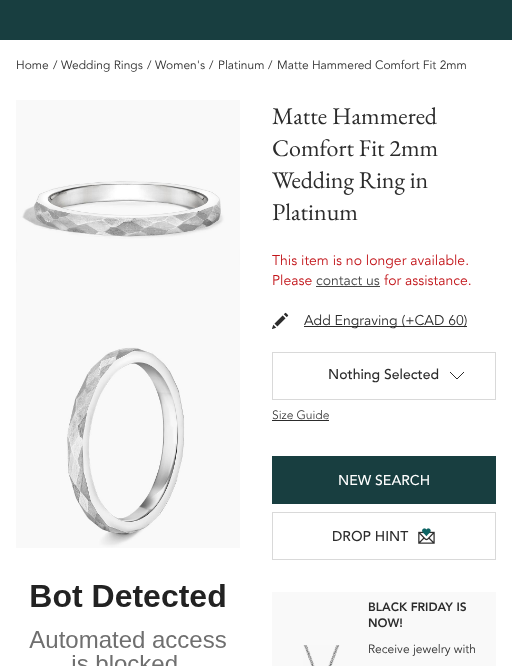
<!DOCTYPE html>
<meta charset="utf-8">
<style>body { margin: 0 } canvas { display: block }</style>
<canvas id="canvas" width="512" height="666"></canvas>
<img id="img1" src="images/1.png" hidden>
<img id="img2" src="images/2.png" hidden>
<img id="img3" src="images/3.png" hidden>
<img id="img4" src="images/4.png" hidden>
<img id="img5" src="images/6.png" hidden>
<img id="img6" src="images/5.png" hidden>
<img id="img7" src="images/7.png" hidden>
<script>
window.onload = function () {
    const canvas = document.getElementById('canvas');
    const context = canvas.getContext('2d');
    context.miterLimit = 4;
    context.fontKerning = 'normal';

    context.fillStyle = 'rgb(255, 255, 255)';
    context.fillRect(0, 0, 512, 666);
    context.fillStyle = 'rgb(24, 62, 64)';
    context.fillRect(0, 0, 512, 40);
    context.drawImage(document.getElementById('img1'), 16, 100, 224, 224);
    context.drawImage(document.getElementById('img2'), 16, 324, 224, 224);
    context.drawImage(document.getElementById('img3'), 29, 584, 197, 82);
    context.fillStyle = 'rgb(70, 70, 70)';
    context.fillRect(316, 286, 64, 1);
    context.drawImage(document.getElementById('img4'), 272, 312, 17, 17);
    context.fillStyle = 'rgb(44, 44, 44)';
    context.fillRect(304, 326, 163, 1);
    context.strokeStyle = 'rgb(217, 217, 217)';
    context.strokeRect(272.5, 352.5, 223, 47);
    context.beginPath();
    context.moveTo(464, 372);
    context.lineTo(457, 379);
    context.lineTo(450, 372);
    context.strokeStyle = 'rgb(44, 44, 44)';
    context.stroke();
    context.fillRect(272, 420, 57, 1);
    context.fillStyle = 'rgb(24, 62, 64)';
    context.fillRect(272, 456, 224, 48);
    context.strokeStyle = 'rgb(217, 217, 217)';
    context.strokeRect(272.5, 512.5, 223, 47);
    context.drawImage(document.getElementById('img5'), 418, 531, 17, 13);
    context.drawImage(document.getElementById('img6'), 422, 528, 9, 9);
    context.fillStyle = 'rgb(249, 249, 249)';
    context.fillRect(272, 592, 224, 74);
    context.drawImage(document.getElementById('img7'), 303, 645, 37, 21);
    context.font = '12px Avenir';
    context.fillStyle = 'rgb(44, 44, 44)';
    context.fillText('Home', 16, 69);
    context.fillText('/', 53, 69);
    context.fillText('Wedding Rings', 61, 69);
    context.fillText('/', 147, 69);
    context.fillText('Women\'s', 155, 69);
    context.fillText('/', 209, 69);
    context.fillText('Platinum', 218, 69);
    context.fillText('/', 268, 69);
    context.fillText('Matte Hammered Comfort Fit 2mm', 277, 69);
    context.font = '24px EB Garamond';
    context.fillText('Matte Hammered', 272, 124);
    context.fillText('Comfort Fit 2mm', 272, 156);
    context.fillText('Wedding Ring in', 272, 188);
    context.fillText('Platinum', 272, 220);
    context.font = '14px Avenir';
    context.fillStyle = 'rgb(194, 20, 25)';
    context.fillText('This item is no longer available.', 272, 265);
    context.fillText('Please', 272, 285);
    context.fillStyle = 'rgb(70, 70, 70)';
    context.fillText('contact us', 316, 285);
    context.fillStyle = 'rgb(194, 20, 25)';
    context.fillText('for assistance.', 384, 285);
    context.fillStyle = 'rgb(44, 44, 44)';
    context.fillText('Add Engraving (+CAD 60)', 304, 325);
    context.font = '14px "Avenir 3"';
    context.fillText('Nothing Selected', 328, 379);
    context.font = '12px "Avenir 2"';
    context.fillText('Size Guide', 272, 419);
    context.font = '14px "Avenir 3"';
    context.fillStyle = 'rgb(255, 255, 255)';
    context.fillText('NEW SEARCH', 338, 485);
    context.fillStyle = 'rgb(44, 44, 44)';
    context.fillText('DROP HINT', 332, 541);
    context.font = '12px "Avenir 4"';
    context.fillText('BLACK FRIDAY IS', 368, 611);
    context.fillText('NOW!', 368, 627);
    context.font = '12px Avenir';
    context.fillText('Receive jewelry with', 368, 653);
};
</script>
